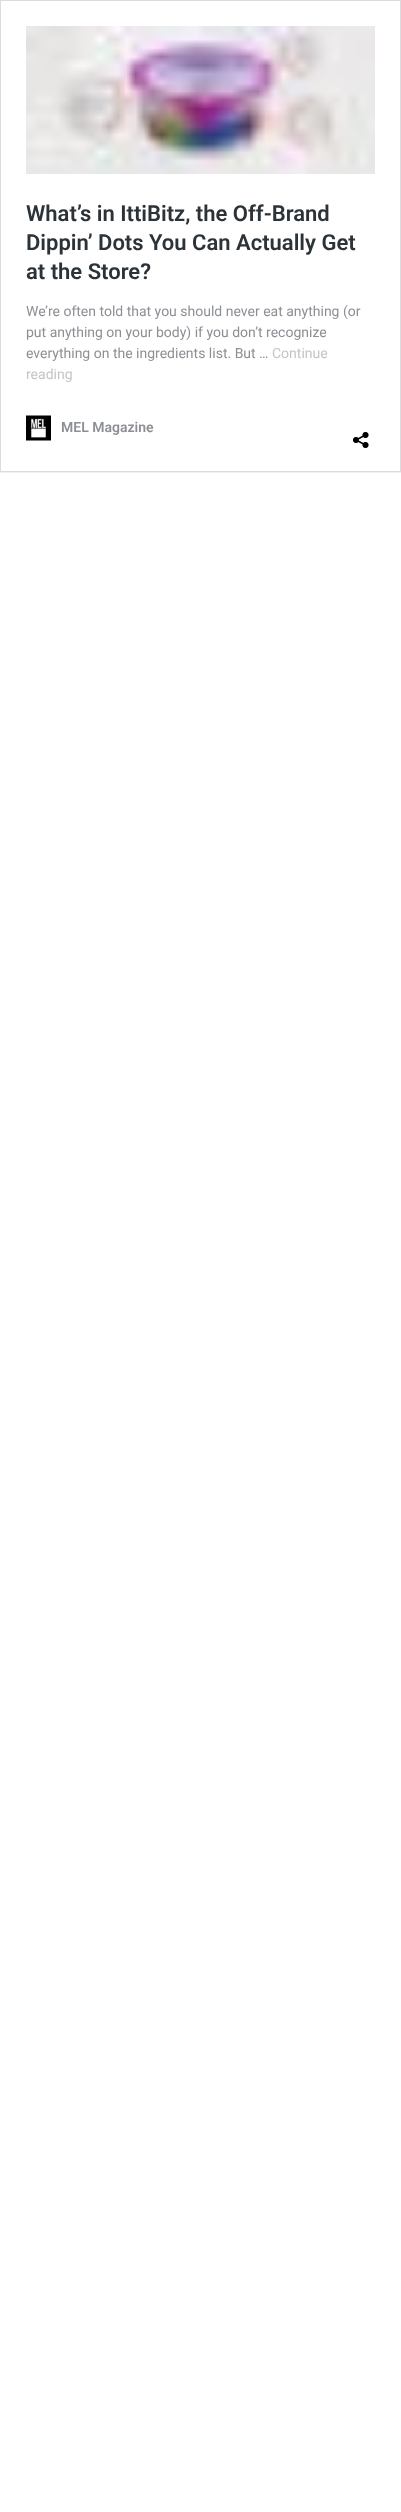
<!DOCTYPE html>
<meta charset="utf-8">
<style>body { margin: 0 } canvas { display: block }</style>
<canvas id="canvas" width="401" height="2512"></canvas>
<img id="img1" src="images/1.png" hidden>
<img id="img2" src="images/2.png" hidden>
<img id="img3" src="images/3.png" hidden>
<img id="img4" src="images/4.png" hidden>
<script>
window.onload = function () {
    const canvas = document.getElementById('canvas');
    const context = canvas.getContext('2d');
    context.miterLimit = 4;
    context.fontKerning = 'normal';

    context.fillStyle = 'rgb(255, 255, 255)';
    context.fillRect(0, 0, 401, 2512);
    context.save();
    context.beginPath();
    context.rect(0, 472, 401, 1);
    context.clip();
    context.fillStyle = 'rgba(0, 0, 0, 0.05)';
    context.filter = 'blur(0.5px)';
    context.beginPath();
    context.rect(0, 1, 401, 472);
    context.fill();
    context.filter = 'none';
    context.restore();
    context.strokeStyle = 'rgb(220, 220, 222)';
    context.strokeRect(0.5, 0.5, 400, 471);
    context.drawImage(document.getElementById('img1'), 26, 26, 349, 148);
    context.drawImage(document.getElementById('img2'), 26, 415, 25, 26);
    context.drawImage(document.getElementById('img3'), 353, 432, 16, 16);
    context.drawImage(document.getElementById('img4'), 353, 432, 16, 16);
    context.font = '600 22px Roboto';
    context.fillStyle = 'rgb(44, 51, 56)';
    context.fillText('What’s in IttiBitz, the Off-Brand', 26, 221);
    context.fillText('Dippin’ Dots You Can Actually Get', 26, 250);
    context.fillText('at the Store?', 26, 279);
    context.font = '14px Roboto';
    context.fillStyle = 'rgb(140, 143, 148)';
    context.fillText('We’re often told that you should never eat anything (or', 26, 316);
    context.fillText('put anything on your body) if you don’t recognize', 26, 337);
    context.fillText('everything on the ingredients list. But …', 26, 358);
    context.fillStyle = 'rgb(195, 196, 199)';
    context.fillText('Continue', 272, 358);
    context.fillText('reading', 26, 379);
    context.font = '600 14px Roboto';
    context.fillStyle = 'rgb(140, 143, 148)';
    context.fillText('MEL Magazine', 61, 432);
};
</script>
